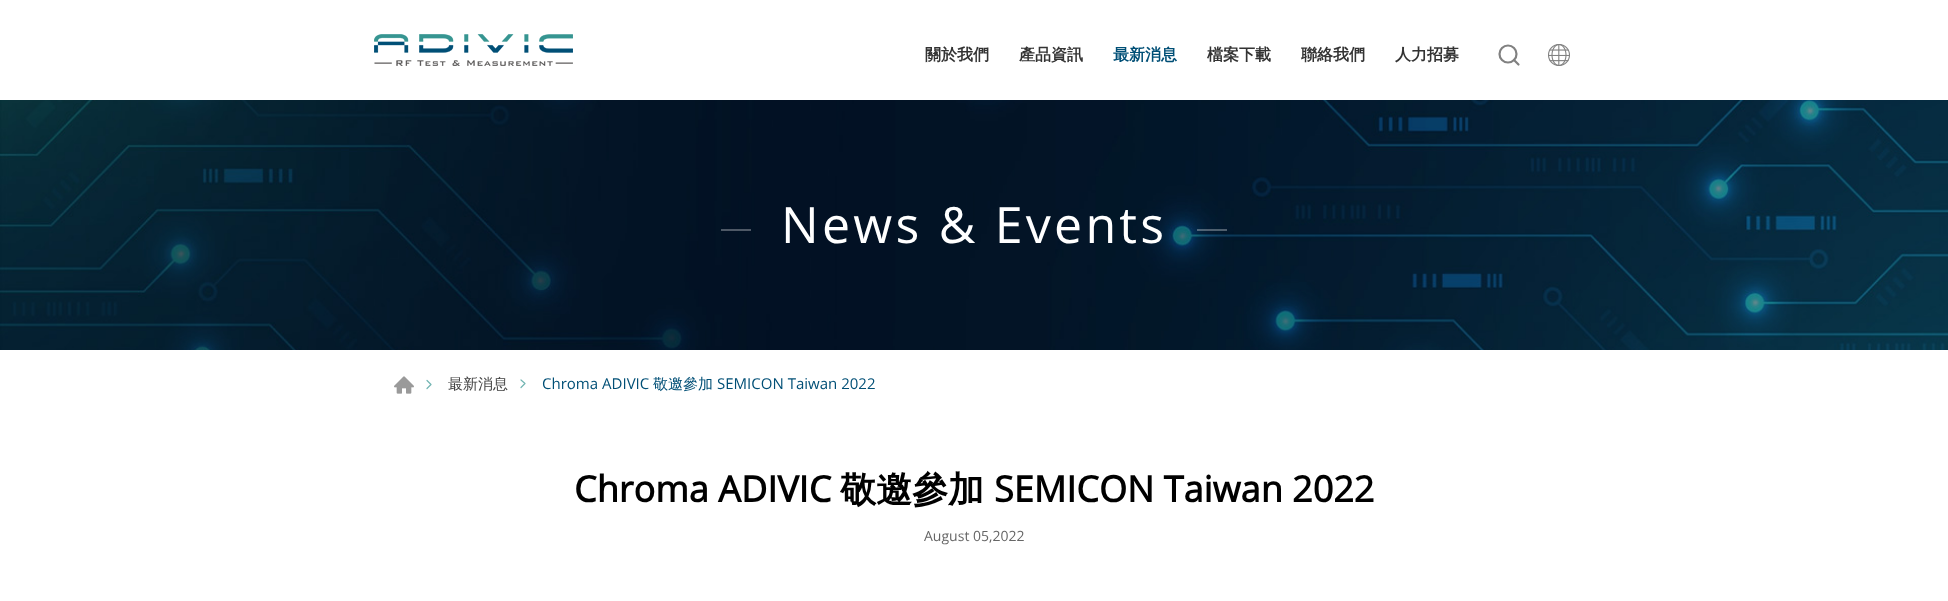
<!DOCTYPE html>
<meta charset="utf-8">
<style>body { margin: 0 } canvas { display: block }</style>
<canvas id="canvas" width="1948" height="601"></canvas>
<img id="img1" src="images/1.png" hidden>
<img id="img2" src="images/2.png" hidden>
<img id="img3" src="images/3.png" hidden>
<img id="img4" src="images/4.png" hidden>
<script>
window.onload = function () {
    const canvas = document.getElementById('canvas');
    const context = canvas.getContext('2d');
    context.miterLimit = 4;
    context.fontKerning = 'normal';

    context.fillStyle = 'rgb(255, 255, 255)';
    context.fillRect(0, 0, 1948, 601);
    context.drawImage(document.getElementById('img1'), 374, 34, 199, 32);
    context.beginPath();
    context.arc(1508, 54, 8.5, 0, 2 * Math.PI);
    context.strokeStyle = 'rgb(129, 129, 129)';
    context.lineWidth = 2.2;
    context.stroke();
    context.beginPath();
    context.moveTo(1514, 60);
    context.lineTo(1518.5, 64.5);
    context.lineCap = 'round';
    context.lineJoin = 'round';
    context.stroke();
    context.drawImage(document.getElementById('img2'), 1548, 44, 22, 22);
    context.drawImage(document.getElementById('img3'), 0, 100, 1948, 250);
    context.fillStyle = 'rgb(78, 88, 102)';
    context.fillRect(721, 229, 30, 2);
    context.fillStyle = 'rgba(255, 255, 255, 0.3)';
    context.fillRect(1197, 229, 30, 2);
    context.drawImage(document.getElementById('img4'), 394, 376, 20, 18);
    context.beginPath();
    context.moveTo(427, 388.5);
    context.lineTo(431, 384.5);
    context.lineTo(427, 380.5);
    context.strokeStyle = 'rgb(114, 181, 178)';
    context.lineWidth = 1.2;
    context.stroke();
    context.beginPath();
    context.moveTo(521, 387.5);
    context.lineTo(525, 383.5);
    context.lineTo(521, 380);
    context.stroke();
    context.font = 'bold 16px WenQuanYi Zen Hei';
    context.fillStyle = 'rgb(51, 51, 51)';
    context.fillText('關於我們', 925, 60);
    context.fillText('產品資訊', 1019, 60);
    context.fillStyle = 'rgb(0, 79, 118)';
    context.fillText('最新消息', 1113, 60);
    context.fillStyle = 'rgb(51, 51, 51)';
    context.fillText('檔案下載', 1207, 60);
    context.fillText('聯絡我們', 1301, 60);
    context.fillText('人力招募', 1395, 60);
    context.letterSpacing = '3.25px';
    context.font = '50px Open Sans';
    context.fillStyle = 'rgb(255, 255, 255)';
    context.fillText('News & Events', 781, 243);
    context.letterSpacing = '0px';
    context.font = '500 15px WenQuanYi Zen Hei';
    context.fillStyle = 'rgb(65, 65, 65)';
    context.fillText('最新消息', 448, 389);
    context.font = '15px Open Sans';
    context.fillStyle = 'rgb(0, 79, 118)';
    context.fillText('Chroma ADIVIC', 542, 389);
    context.font = '500 15px WenQuanYi Zen Hei';
    context.fillText('敬邀參加', 653, 389);
    context.font = '15px Open Sans';
    context.fillText('SEMICON Taiwan 2022', 717, 389);
    context.font = 'bold 36px Open Sans';
    context.fillStyle = 'rgb(0, 0, 0)';
    context.fillText('Chroma ADIVIC', 574, 502);
    context.font = 'bold 36px WenQuanYi Zen Hei';
    context.fillText('敬邀參加', 840, 502);
    context.font = 'bold 36px Open Sans';
    context.fillText('SEMICON Taiwan 2022', 994, 502);
    context.font = '14px Open Sans';
    context.fillStyle = 'rgb(102, 102, 102)';
    context.fillText('August 05,2022', 924, 541);
};
</script>
